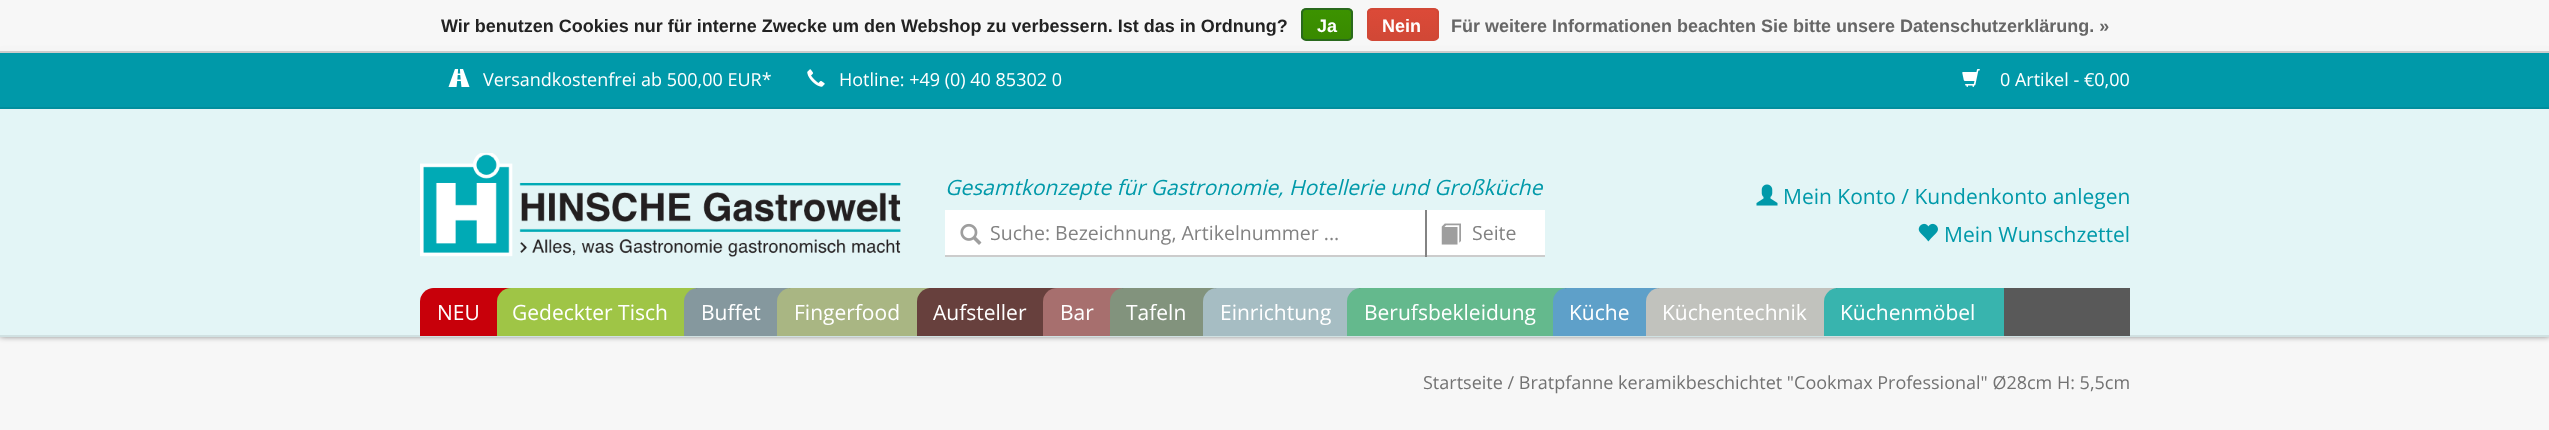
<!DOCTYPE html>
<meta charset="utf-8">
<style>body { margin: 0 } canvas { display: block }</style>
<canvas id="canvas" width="2549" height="430"></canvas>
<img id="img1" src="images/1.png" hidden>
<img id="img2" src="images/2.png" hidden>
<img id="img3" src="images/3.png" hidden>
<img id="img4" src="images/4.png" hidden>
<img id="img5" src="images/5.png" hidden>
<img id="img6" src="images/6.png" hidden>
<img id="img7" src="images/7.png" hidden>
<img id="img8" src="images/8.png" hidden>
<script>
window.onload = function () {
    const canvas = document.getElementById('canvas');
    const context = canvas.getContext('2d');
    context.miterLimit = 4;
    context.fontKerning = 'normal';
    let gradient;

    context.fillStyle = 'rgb(247, 247, 247)';
    context.fillRect(0, 0, 2549, 430);
    context.fillStyle = 'rgba(0, 0, 0, 0.58)';
    context.filter = 'blur(3px)';
    context.beginPath();
    context.rect(0, 53, 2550, 283);
    context.fill();
    context.filter = 'none';
    context.fillStyle = 'rgb(245, 245, 245)';
    context.fillRect(0, 47, 2549, 4);
    context.fillStyle = 'rgb(204, 204, 204)';
    context.fillRect(0, 51, 2549, 2);
    context.save();
    context.beginPath();
    context.roundRect(1301, 8, 52, 33, 5);
    context.clip();
    gradient = context.createLinearGradient(1327, 9, 1327, 39);
    gradient.addColorStop(0, 'rgb(60, 147, 0)');
    gradient.addColorStop(1, 'rgb(57, 138, 0)');
    context.fillStyle = gradient;
    context.fillRect(1301, 9, 52, 30);
    context.restore();
    context.beginPath();
    context.roundRect(1302, 9, 50, 31, 4);
    context.strokeStyle = 'rgb(41, 105, 29)';
    context.lineWidth = 2;
    context.stroke();
    context.save();
    context.beginPath();
    context.roundRect(1367, 8, 72, 33, 5);
    context.clip();
    gradient = context.createLinearGradient(1403, 9, 1403, 39);
    gradient.addColorStop(0, 'rgb(220, 74, 56)');
    gradient.addColorStop(1, 'rgb(209, 72, 54)');
    context.fillStyle = gradient;
    context.fillRect(1367, 9, 72, 30);
    context.restore();
    context.beginPath();
    context.roundRect(1368, 9, 70, 31, 4);
    context.strokeStyle = 'rgb(209, 72, 54)';
    context.stroke();
    context.fillStyle = 'rgb(227, 245, 246)';
    context.fillRect(0, 109, 2549, 226);
    context.fillStyle = 'rgb(208, 225, 226)';
    context.fillRect(0, 335, 2549, 2);
    context.fillStyle = 'rgb(0, 153, 169)';
    context.fillRect(0, 53, 2549, 54);
    context.fillStyle = 'rgb(0, 142, 157)';
    context.fillRect(0, 107, 2549, 2);
    context.drawImage(document.getElementById('img1'), 448, 69, 22, 18);
    context.drawImage(document.getElementById('img2'), 807, 69, 18, 18);
    context.drawImage(document.getElementById('img3'), 1962, 69, 18, 18);
    context.drawImage(document.getElementById('img4'), 420, 153, 481, 104);
    context.drawImage(document.getElementById('img5'), 1756, 184, 22, 22);
    context.drawImage(document.getElementById('img6'), 1918, 223, 20, 19);
    context.fillStyle = 'rgb(255, 255, 255)';
    context.fillRect(945, 210, 480, 45);
    context.drawImage(document.getElementById('img7'), 960, 223, 22, 22);
    context.fillStyle = 'rgb(204, 204, 204)';
    context.fillRect(945, 255, 600, 2);
    context.fillStyle = 'rgb(255, 255, 255)';
    context.fillRect(1427, 210, 118, 45);
    context.drawImage(document.getElementById('img8'), 1441, 223, 20, 22);
    context.fillStyle = 'rgb(131, 131, 131)';
    context.fillRect(1425, 210, 2, 47);
    context.fillStyle = 'rgb(89, 89, 89)';
    context.beginPath();
    context.roundRect(420, 288, 1710, 48, [17, 0, 0, 0]);
    context.fill();
    context.fillStyle = 'rgb(200, 0, 10)';
    context.beginPath();
    context.roundRect(420, 288, 89, 48, [14, 0, 0, 0]);
    context.fill();
    context.fillStyle = 'rgb(159, 197, 70)';
    context.beginPath();
    context.roundRect(497, 288, 199, 48, [14, 0, 0, 0]);
    context.fill();
    context.fillStyle = 'rgb(133, 152, 158)';
    context.beginPath();
    context.roundRect(684, 288, 105, 48, [14, 0, 0, 0]);
    context.fill();
    context.fillStyle = 'rgb(169, 182, 131)';
    context.beginPath();
    context.roundRect(777, 288, 152, 48, [14, 0, 0, 0]);
    context.fill();
    context.fillStyle = 'rgb(103, 64, 61)';
    context.beginPath();
    context.roundRect(917, 288, 138, 48, [14, 0, 0, 0]);
    context.fill();
    context.fillStyle = 'rgb(167, 111, 110)';
    context.beginPath();
    context.roundRect(1043, 288, 79, 48, [14, 0, 0, 0]);
    context.fill();
    context.fillStyle = 'rgb(130, 147, 125)';
    context.beginPath();
    context.roundRect(1110, 288, 105, 48, [14, 0, 0, 0]);
    context.fill();
    context.fillStyle = 'rgb(166, 189, 195)';
    context.beginPath();
    context.roundRect(1203, 288, 156, 48, [14, 0, 0, 0]);
    context.fill();
    context.fillStyle = 'rgb(100, 185, 141)';
    context.beginPath();
    context.roundRect(1347, 288, 218, 48, [14, 0, 0, 0]);
    context.fill();
    context.fillStyle = 'rgb(94, 160, 201)';
    context.beginPath();
    context.roundRect(1553, 288, 105, 48, [14, 0, 0, 0]);
    context.fill();
    context.fillStyle = 'rgb(193, 194, 189)';
    context.beginPath();
    context.roundRect(1646, 288, 190, 48, [14, 0, 0, 0]);
    context.fill();
    context.fillStyle = 'rgb(56, 180, 174)';
    context.beginPath();
    context.roundRect(1824, 288, 180, 48, [14, 0, 0, 0]);
    context.fill();
    context.font = 'bold 18px Liberation Sans';
    context.fillStyle = 'rgb(34, 34, 34)';
    context.fillText('Wir benutzen Cookies nur für interne Zwecke um den Webshop zu verbessern. Ist das in Ordnung?', 441, 32);
    context.fillStyle = 'rgb(255, 255, 255)';
    context.fillText('Ja', 1317, 32);
    context.fillText('Nein', 1382, 32);
    context.fillStyle = 'rgb(102, 102, 102)';
    context.fillText('Für weitere Informationen beachten Sie bitte unsere Datenschutzerklärung. »', 1451, 32);
    context.font = '18px Open Sans';
    context.fillStyle = 'rgb(255, 255, 255)';
    context.fillText('Versandkostenfrei ab 500,00 EUR*', 483, 86);
    context.fillText('Hotline: +49 (0) 40 85302 0', 839, 86);
    context.fillText('0 Artikel - €0,00', 2000, 86);
    context.font = 'italic 21px Open Sans';
    context.fillStyle = 'rgb(0, 153, 169)';
    context.fillText('Gesamtkonzepte für Gastronomie, Hotellerie und Großküche', 945, 195);
    context.font = '21px Open Sans';
    context.fillText('Mein Konto / Kundenkonto anlegen', 1783, 204);
    context.fillText('Mein Wunschzettel', 1944, 242);
    context.font = '19.5px Open Sans';
    context.fillStyle = 'rgb(130, 130, 130)';
    context.fillText('Suche: Bezeichnung, Artikelnummer ...', 990, 240);
    context.fillText('Seite', 1472, 240);
    context.font = '21px Open Sans';
    context.fillStyle = 'rgb(255, 255, 255)';
    context.fillText('NEU', 437, 320);
    context.fillText('Gedeckter Tisch', 512, 320);
    context.fillText('Buffet', 701, 320);
    context.fillText('Fingerfood', 794, 320);
    context.fillText('Aufsteller', 933, 320);
    context.fillText('Bar', 1060, 320);
    context.fillText('Tafeln', 1126, 320);
    context.fillText('Einrichtung', 1220, 320);
    context.fillText('Berufsbekleidung', 1364, 320);
    context.fillText('Küche', 1569, 320);
    context.fillText('Küchentechnik', 1662, 320);
    context.fillText('Küchenmöbel', 1840, 320);
    context.font = '18px Open Sans';
    context.fillStyle = 'rgb(114, 114, 114)';
    context.fillText('Startseite / Bratpfanne keramikbeschichtet "Cookmax Professional" Ø28cm H: 5,5cm', 1423, 389);
};
</script>
